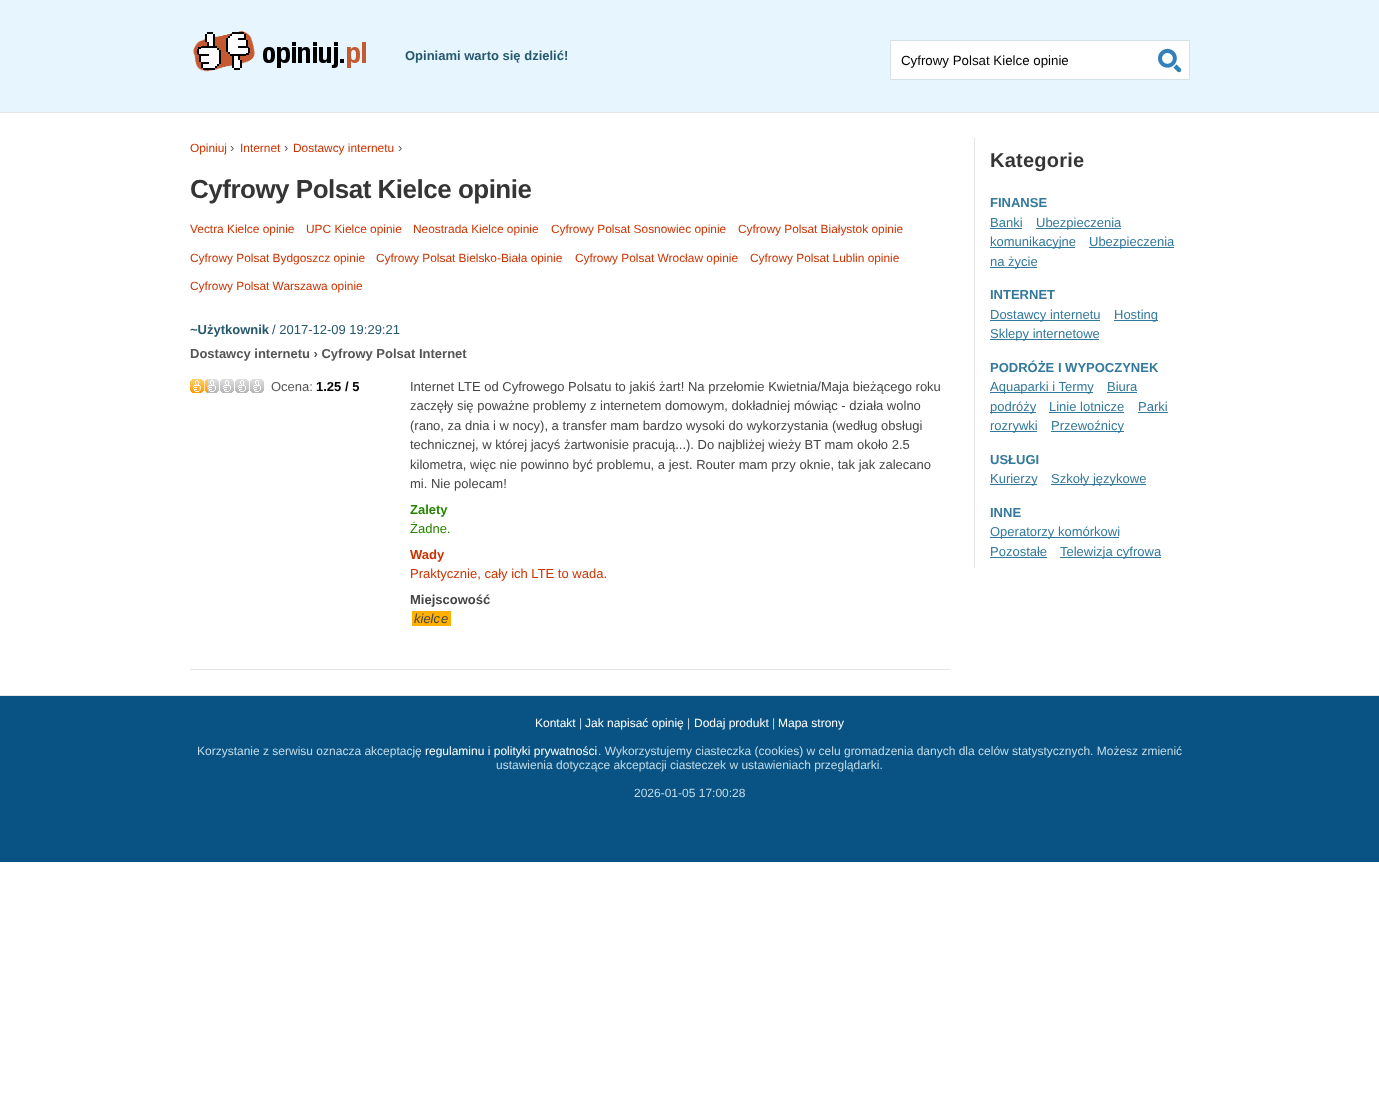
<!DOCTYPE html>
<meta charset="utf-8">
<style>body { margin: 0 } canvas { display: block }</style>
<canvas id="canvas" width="1379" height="1096"></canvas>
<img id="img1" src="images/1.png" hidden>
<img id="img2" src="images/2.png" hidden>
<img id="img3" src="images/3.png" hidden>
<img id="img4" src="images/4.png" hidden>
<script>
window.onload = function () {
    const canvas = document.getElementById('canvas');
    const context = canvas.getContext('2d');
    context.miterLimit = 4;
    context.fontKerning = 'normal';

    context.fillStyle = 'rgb(255, 255, 255)';
    context.fillRect(0, 0, 1379, 1096);
    context.fillStyle = 'rgb(231, 246, 254)';
    context.fillRect(0, 0, 1379, 112);
    context.fillStyle = 'rgb(229, 229, 229)';
    context.fillRect(0, 112, 1379, 1);
    context.drawImage(document.getElementById('img1'), 193, 31, 173, 41);
    context.fillStyle = 'rgb(255, 255, 255)';
    context.beginPath();
    context.rect(890.5, 40.5, 299, 39);
    context.fill();
    context.strokeStyle = 'rgb(210, 226, 232)';
    context.stroke();
    context.drawImage(document.getElementById('img2'), 1158, 48, 24, 25);
    context.fillStyle = 'rgb(229, 229, 229)';
    context.fillRect(190, 669, 760, 1);
    context.drawImage(document.getElementById('img3'), 201, 379, 63, 14);
    context.drawImage(document.getElementById('img4'), 190, 379, 18, 14);
    context.fillStyle = 'rgb(255, 176, 0)';
    context.fillRect(412, 611, 39, 15);
    context.fillStyle = 'rgb(229, 229, 229)';
    context.fillRect(974, 138, 1, 430);
    context.fillStyle = 'rgb(51, 121, 155)';
    context.fillRect(990, 228, 32, 1);
    context.fillRect(1036, 228, 85, 1);
    context.fillRect(990, 247, 85, 1);
    context.fillRect(1089, 247, 85, 1);
    context.fillRect(990, 267, 47, 1);
    context.fillRect(990, 320, 110, 1);
    context.fillRect(1114, 320, 44, 1);
    context.fillRect(990, 339, 109, 1);
    context.fillRect(990, 392, 103, 1);
    context.fillRect(1107, 392, 30, 1);
    context.fillRect(990, 412, 46, 1);
    context.fillRect(1049, 412, 75, 1);
    context.fillRect(1138, 412, 30, 1);
    context.fillRect(990, 431, 47, 1);
    context.fillRect(1051, 431, 73, 1);
    context.fillRect(990, 484, 47, 1);
    context.fillRect(1051, 484, 95, 1);
    context.fillRect(990, 537, 129, 1);
    context.fillRect(990, 557, 57, 1);
    context.fillRect(1060, 557, 101, 1);
    context.fillStyle = 'rgb(8, 83, 131)';
    context.fillRect(0, 696, 1379, 166);
    context.fillStyle = 'rgb(229, 229, 229)';
    context.fillRect(0, 695, 1379, 1);
    context.font = 'bold 13px Liberation Sans';
    context.fillStyle = 'rgb(38, 88, 110)';
    context.fillText('Opiniami warto się dzielić!', 405, 60);
    context.font = '13.3px Liberation Sans';
    context.fillStyle = 'rgb(0, 0, 0)';
    context.fillText('Cyfrowy Polsat Kielce opinie', 901, 65);
    context.font = '11.9px Liberation Sans';
    context.fillStyle = 'rgb(204, 51, 0)';
    context.fillText('Opiniuj', 190, 152);
    context.font = '13px Liberation Sans';
    context.fillStyle = 'rgb(85, 85, 85)';
    context.fillText('›', 230, 152);
    context.font = '11.9px Liberation Sans';
    context.fillStyle = 'rgb(204, 51, 0)';
    context.fillText('Internet', 240, 152);
    context.font = '13px Liberation Sans';
    context.fillStyle = 'rgb(85, 85, 85)';
    context.fillText('›', 284, 152);
    context.font = '11.9px Liberation Sans';
    context.fillStyle = 'rgb(204, 51, 0)';
    context.fillText('Dostawcy internetu', 293, 152);
    context.font = '13px Liberation Sans';
    context.fillStyle = 'rgb(85, 85, 85)';
    context.fillText('›', 398, 152);
    context.letterSpacing = '-0.5px';
    context.font = 'bold 26px Liberation Sans';
    context.fillStyle = 'rgb(53, 53, 53)';
    context.fillText('Cyfrowy Polsat Kielce opinie', 190, 198);
    context.letterSpacing = '0px';
    context.font = '11.9px Liberation Sans';
    context.fillStyle = 'rgb(204, 51, 0)';
    context.fillText('Vectra Kielce opinie', 190, 233);
    context.fillText('UPC Kielce opinie', 306, 233);
    context.fillText('Neostrada Kielce opinie', 413, 233);
    context.fillText('Cyfrowy Polsat Sosnowiec opinie', 551, 233);
    context.fillText('Cyfrowy Polsat Białystok opinie', 738, 233);
    context.fillText('Cyfrowy Polsat Bydgoszcz opinie', 190, 262);
    context.fillText('Cyfrowy Polsat Bielsko-Biała opinie', 376, 262);
    context.fillText('Cyfrowy Polsat Wrocław opinie', 575, 262);
    context.fillText('Cyfrowy Polsat Lublin opinie', 750, 262);
    context.fillText('Cyfrowy Polsat Warszawa opinie', 190, 290);
    context.font = 'bold 13px Liberation Sans';
    context.fillStyle = 'rgb(38, 88, 110)';
    context.fillText('~Użytkownik', 190, 334);
    context.font = '13px Liberation Sans';
    context.fillText('/ 2017-12-09 19:29:21', 272, 334);
    context.font = 'bold 13px Liberation Sans';
    context.fillStyle = 'rgb(85, 85, 85)';
    context.fillText('Dostawcy internetu › Cyfrowy Polsat Internet', 190, 358);
    context.font = '13px Liberation Sans';
    context.fillText('Ocena:', 271, 391);
    context.font = 'bold 13px Liberation Sans';
    context.fillStyle = 'rgb(0, 0, 0)';
    context.fillText('1.25 / 5', 316, 391);
    context.font = '13px Liberation Sans';
    context.fillStyle = 'rgb(69, 69, 69)';
    context.fillText('Internet LTE od Cyfrowego Polsatu to jakiś żart! Na przełomie Kwietnia/Maja bieżącego roku', 410, 391);
    context.fillText('zaczęły się poważne problemy z internetem domowym, dokładniej mówiąc - działa wolno', 410, 410);
    context.fillText('(rano, za dnia i w nocy), a transfer mam bardzo wysoki do wykorzystania (według obsługi', 410, 430);
    context.fillText('technicznej, w której jacyś żartwonisie pracują...). Do najbliżej wieży BT mam około 2.5', 410, 449);
    context.fillText('kilometra, więc nie powinno być problemu, a jest. Router mam przy oknie, tak jak zalecano', 410, 469);
    context.fillText('mi. Nie polecam!', 410, 488);
    context.font = 'bold 13px Liberation Sans';
    context.fillStyle = 'rgb(38, 133, 0)';
    context.fillText('Zalety', 410, 514);
    context.font = '13px Liberation Sans';
    context.fillText('Żadne.', 410, 533);
    context.font = 'bold 13px Liberation Sans';
    context.fillStyle = 'rgb(204, 51, 0)';
    context.fillText('Wady', 410, 559);
    context.font = '13px Liberation Sans';
    context.fillText('Praktycznie, cały ich LTE to wada.', 410, 578);
    context.font = 'bold 13px Liberation Sans';
    context.fillStyle = 'rgb(69, 69, 69)';
    context.fillText('Miejscowość', 410, 604);
    context.font = 'italic 13px Liberation Sans';
    context.fillText('kielc', 414, 623);
    context.fillText('e', 441, 623);
    context.letterSpacing = '0.25px';
    context.font = 'bold 20px Liberation Sans';
    context.fillStyle = 'rgb(53, 53, 53)';
    context.fillText('Kategorie', 990, 167);
    context.letterSpacing = '0px';
    context.font = 'bold 13px Liberation Sans';
    context.fillStyle = 'rgb(51, 121, 155)';
    context.fillText('FINANSE', 990, 207);
    context.font = '13px Liberation Sans';
    context.fillText('Banki', 990, 227);
    context.fillText('Ubezpieczenia', 1036, 227);
    context.fillText('komunikacyjne', 990, 246);
    context.fillText('Ubezpieczenia', 1089, 246);
    context.fillText('na życie', 990, 266);
    context.font = 'bold 13px Liberation Sans';
    context.fillText('INTERNET', 990, 299);
    context.font = '13px Liberation Sans';
    context.fillText('Dostawcy internetu', 990, 319);
    context.fillText('Hosting', 1114, 319);
    context.fillText('Sklepy internetowe', 990, 338);
    context.font = 'bold 13px Liberation Sans';
    context.fillText('PODRÓŻE I WYPOCZYNEK', 990, 372);
    context.font = '13px Liberation Sans';
    context.fillText('Aquaparki i Termy', 990, 391);
    context.fillText('Biura', 1107, 391);
    context.fillText('podróży', 990, 411);
    context.fillText('Linie lotnicze', 1049, 411);
    context.fillText('Parki', 1138, 411);
    context.fillText('rozrywki', 990, 430);
    context.fillText('Przewoźnicy', 1051, 430);
    context.font = 'bold 13px Liberation Sans';
    context.fillText('USŁUGI', 990, 464);
    context.font = '13px Liberation Sans';
    context.fillText('Kurierzy', 990, 483);
    context.fillText('Szkoły językowe', 1051, 483);
    context.font = 'bold 13px Liberation Sans';
    context.fillText('INNE', 990, 517);
    context.font = '13px Liberation Sans';
    context.fillText('Operatorzy komórkowi', 990, 536);
    context.fillText('Pozostałe', 990, 556);
    context.fillText('Telewizja cyfrowa', 1060, 556);
    context.font = '12px Liberation Sans';
    context.fillStyle = 'rgb(255, 255, 255)';
    context.fillText('Kontakt', 535, 727);
    context.fillStyle = 'rgb(194, 219, 231)';
    context.fillText('|', 579, 727);
    context.fillStyle = 'rgb(255, 255, 255)';
    context.fillText('Jak napisać opinię', 585, 727);
    context.fillStyle = 'rgb(194, 219, 231)';
    context.fillText('|', 687, 727);
    context.fillStyle = 'rgb(255, 255, 255)';
    context.fillText('Dodaj produkt', 694, 727);
    context.fillStyle = 'rgb(194, 219, 231)';
    context.fillText('|', 772, 727);
    context.fillStyle = 'rgb(255, 255, 255)';
    context.fillText('Mapa strony', 778, 727);
    context.fillStyle = 'rgb(194, 219, 231)';
    context.fillText('Korzystanie z serwisu oznacza akceptację', 197, 755);
    context.fillStyle = 'rgb(255, 255, 255)';
    context.fillText('regulaminu i polityki prywatności', 425, 755);
    context.fillStyle = 'rgb(194, 219, 231)';
    context.fillText('. Wykorzystujemy ciasteczka (cookies) w celu gromadzenia danych dla celów statystycznych. Możesz zmienić', 598, 755);
    context.fillText('ustawienia dotyczące akceptacji ciasteczek w ustawieniach przeglądarki.', 496, 769);
    context.fillText('2026-01-05 17:00:28', 634, 797);
};
</script>
